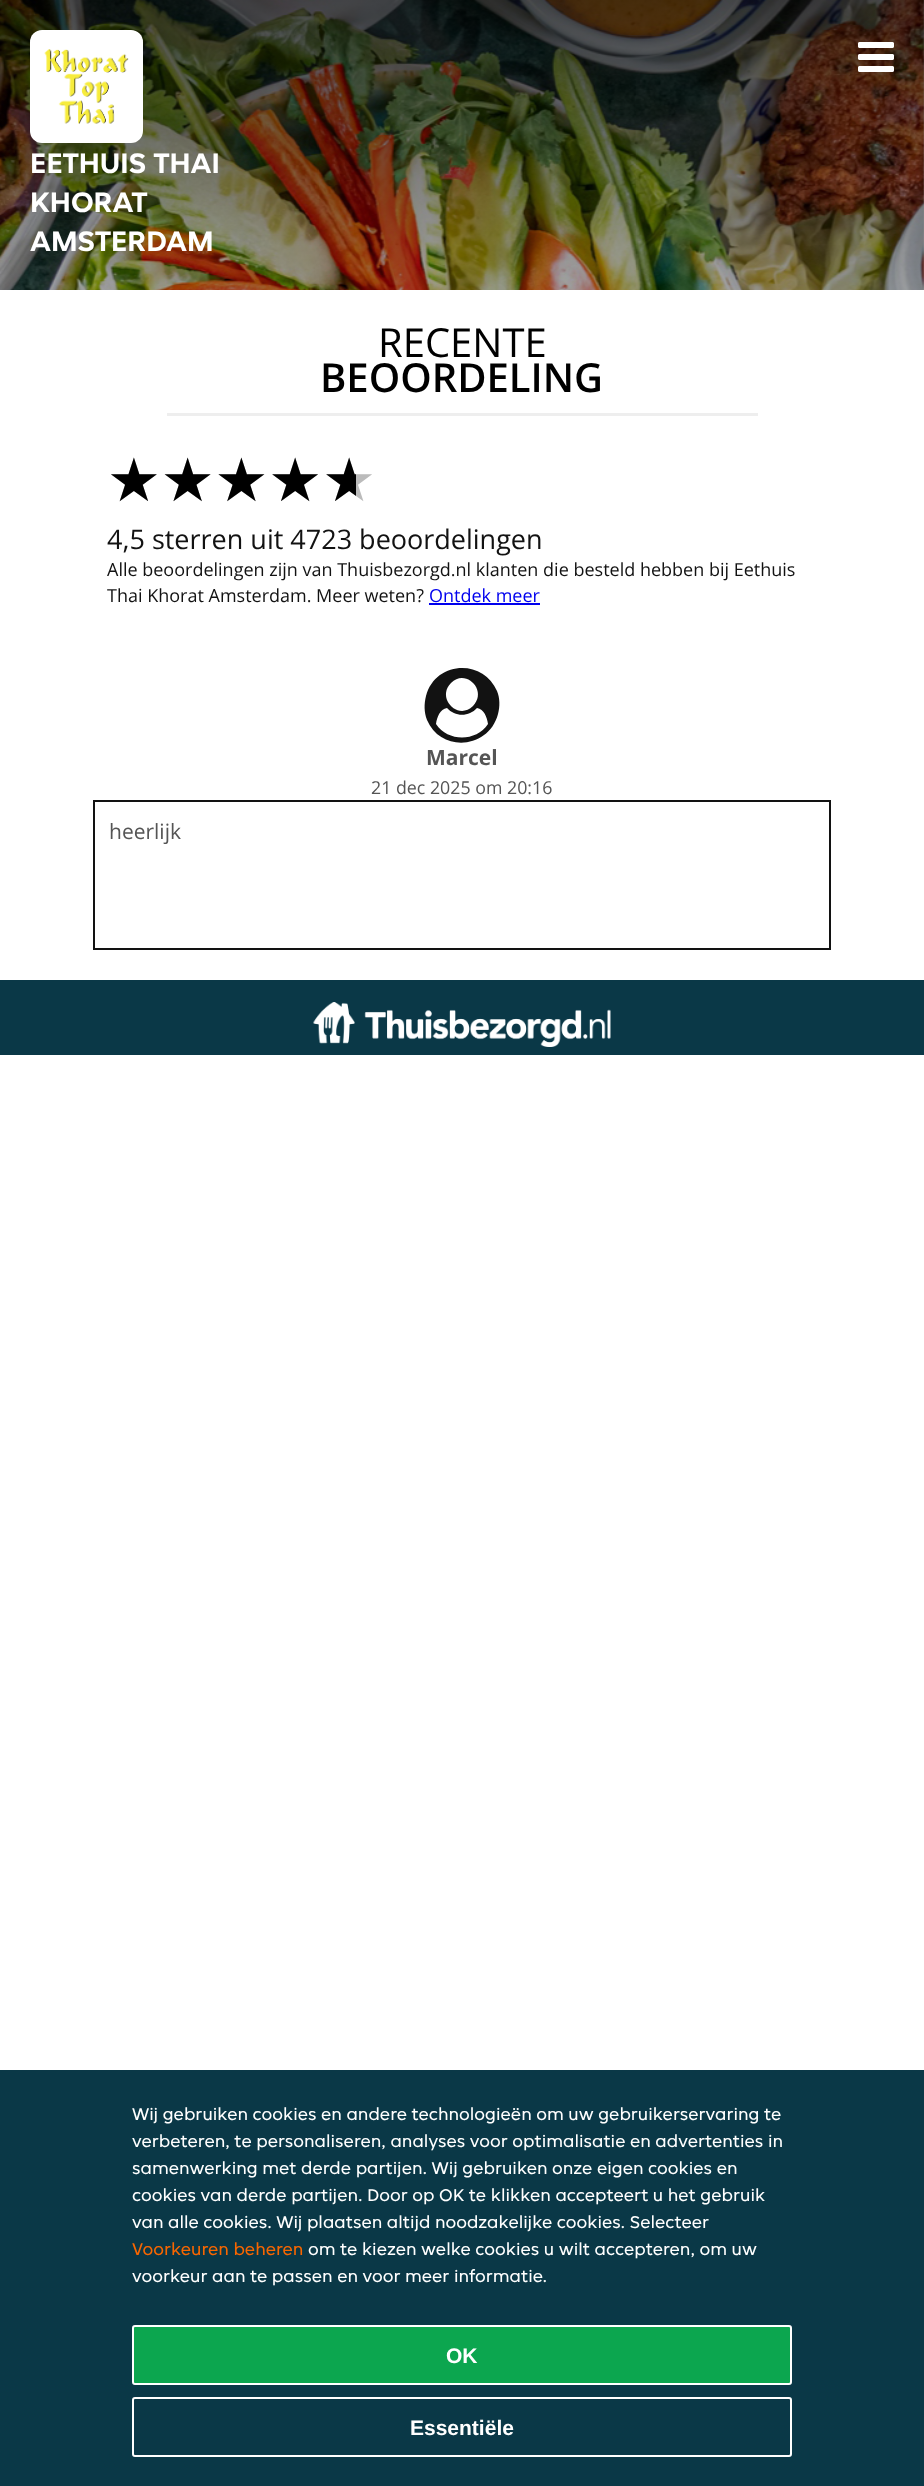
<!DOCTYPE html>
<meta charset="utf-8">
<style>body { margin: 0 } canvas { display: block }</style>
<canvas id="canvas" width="924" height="2486"></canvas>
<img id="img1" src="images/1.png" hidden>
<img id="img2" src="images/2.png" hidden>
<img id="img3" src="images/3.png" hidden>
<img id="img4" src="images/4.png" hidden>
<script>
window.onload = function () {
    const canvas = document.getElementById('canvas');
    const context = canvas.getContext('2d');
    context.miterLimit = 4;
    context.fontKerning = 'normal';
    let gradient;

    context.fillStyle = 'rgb(255, 255, 255)';
    context.fillRect(0, 0, 924, 2486);
    context.drawImage(document.getElementById('img1'), 0, 0, 924, 290);
    gradient = context.createLinearGradient(462, 0, 462, 750);
    gradient.addColorStop(0, 'rgba(0, 0, 0, 0.7)');
    gradient.addColorStop(0.33, 'rgba(0, 0, 0, 0.4)');
    gradient.addColorStop(0.67, 'rgba(0, 0, 0, 0.2)');
    gradient.addColorStop(1, 'rgba(0, 0, 0, 0)');
    context.fillStyle = gradient;
    context.fillRect(0, 0, 924, 290);
    context.drawImage(document.getElementById('img2'), 858, 42, 36, 30);
    context.fillStyle = 'rgb(255, 255, 255)';
    context.beginPath();
    context.roundRect(30, 30, 113, 113, 12);
    context.fill();
    context.drawImage(document.getElementById('img3'), 44, 49, 85, 75);
    context.fillStyle = 'rgb(238, 238, 238)';
    context.fillRect(167, 413, 591, 3);
    context.fillStyle = 'rgb(0, 0, 238)';
    context.fillRect(429, 603, 111, 2);
    context.fillStyle = 'rgb(18, 18, 18)';
    context.beginPath();
    context.moveTo(488, 724);
    context.bezierCurveTo(487, 717, 484, 709, 477, 708);
    context.bezierCurveTo(469, 717, 455, 717, 447, 708);
    context.bezierCurveTo(440, 709, 437, 717, 436, 724);
    context.bezierCurveTo(448, 742, 476, 742, 488, 724);
    context.closePath();
    context.moveTo(473, 706);
    context.bezierCurveTo(488, 691, 466, 668, 451, 683);
    context.bezierCurveTo(436, 698, 458, 721, 473, 706);
    context.closePath();
    context.moveTo(497, 691);
    context.bezierCurveTo(500, 698, 500, 707, 498, 714);
    context.bezierCurveTo(489, 749, 441, 753, 427, 720);
    context.bezierCurveTo(424, 712, 424, 704, 426, 696);
    context.bezierCurveTo(435, 661, 483, 658, 497, 691);
    context.closePath();
    context.fill();
    context.strokeStyle = 'rgb(18, 18, 18)';
    context.lineWidth = 2;
    context.strokeRect(94, 801, 736, 148);
    context.fillStyle = 'rgb(10, 56, 71)';
    context.fillRect(0, 980, 924, 75);
    context.drawImage(document.getElementById('img4'), 313, 1002, 298, 45);
    context.fillRect(0, 2070, 924, 416);
    context.fillStyle = 'rgb(12, 166, 79)';
    context.beginPath();
    context.roundRect(133, 2326, 658, 58, 2);
    context.fill();
    context.strokeStyle = 'rgb(255, 255, 255)';
    context.stroke();
    context.beginPath();
    context.roundRect(133, 2398, 658, 58, 2);
    context.stroke();
    context.font = 'bold 30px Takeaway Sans';
    context.fillStyle = 'rgb(255, 255, 255)';
    context.fillText('EETHUIS THAI', 30, 173);
    context.fillText('KHORAT', 30, 212);
    context.fillText('AMSTERDAM', 30, 251);
    context.font = '40px Open Sans';
    context.fillStyle = 'rgb(0, 0, 0)';
    context.fillText('RECENTE', 378, 357);
    context.font = '600 40px Open Sans';
    context.fillText('BEOORDELING', 320, 392);
    context.font = '60px DejaVu Sans';
    context.fillStyle = 'rgb(187, 187, 187)';
    context.fillText('★★★★★', 107, 501);
    context.save();
    context.beginPath();
    context.rect(108, 449, 248, 60);
    context.clip();
    context.fillStyle = 'rgb(0, 0, 0)';
    context.fillText('★★★★★', 107, 501);
    context.restore();
    context.font = '27px Open Sans';
    context.fillStyle = 'rgb(18, 18, 18)';
    context.fillText('4,5 sterren uit 4723 beoordelingen', 107, 549);
    context.font = '18px Open Sans';
    context.fillText('Alle beoordelingen zijn van Thuisbezorgd.nl klanten die besteld hebben bij Eethuis', 107, 576);
    context.fillText('Thai Khorat Amsterdam. Meer weten?', 107, 602);
    context.fillStyle = 'rgb(0, 0, 238)';
    context.fillText('Ontdek meer', 429, 602);
    context.font = 'bold 21px Open Sans';
    context.fillStyle = 'rgb(85, 85, 85)';
    context.fillText('Marcel', 426, 765);
    context.font = '17.8px Open Sans';
    context.fillText('21 dec 2025 om 20:16', 371, 794);
    context.font = '21px Open Sans';
    context.fillText('heerlijk', 109, 839);
    context.font = '18px Takeaway Sans';
    context.fillStyle = 'rgb(255, 255, 255)';
    context.fillText('Wij gebruiken cookies en andere technologieën om uw gebruikerservaring te', 132, 2120);
    context.fillText('verbeteren, te personaliseren, analyses voor optimalisatie en advertenties in', 132, 2147);
    context.fillText('samenwerking met derde partijen. Wij gebruiken onze eigen cookies en', 132, 2174);
    context.fillText('cookies van derde partijen. Door op OK te klikken accepteert u het gebruik', 132, 2201);
    context.fillText('van alle cookies. Wij plaatsen altijd noodzakelijke cookies. Selecteer', 132, 2228);
    context.fillStyle = 'rgb(248, 102, 0)';
    context.fillText('Voorkeuren beheren', 132, 2255);
    context.fillStyle = 'rgb(255, 255, 255)';
    context.fillText('om te kiezen welke cookies u wilt accepteren, om uw', 308, 2255);
    context.fillText('voorkeur aan te passen en voor meer informatie.', 132, 2282);
    context.font = 'bold 21px Liberation Sans';
    context.fillText('OK', 446, 2363);
    context.fillText('Essentiële', 410, 2435);
};
</script>
